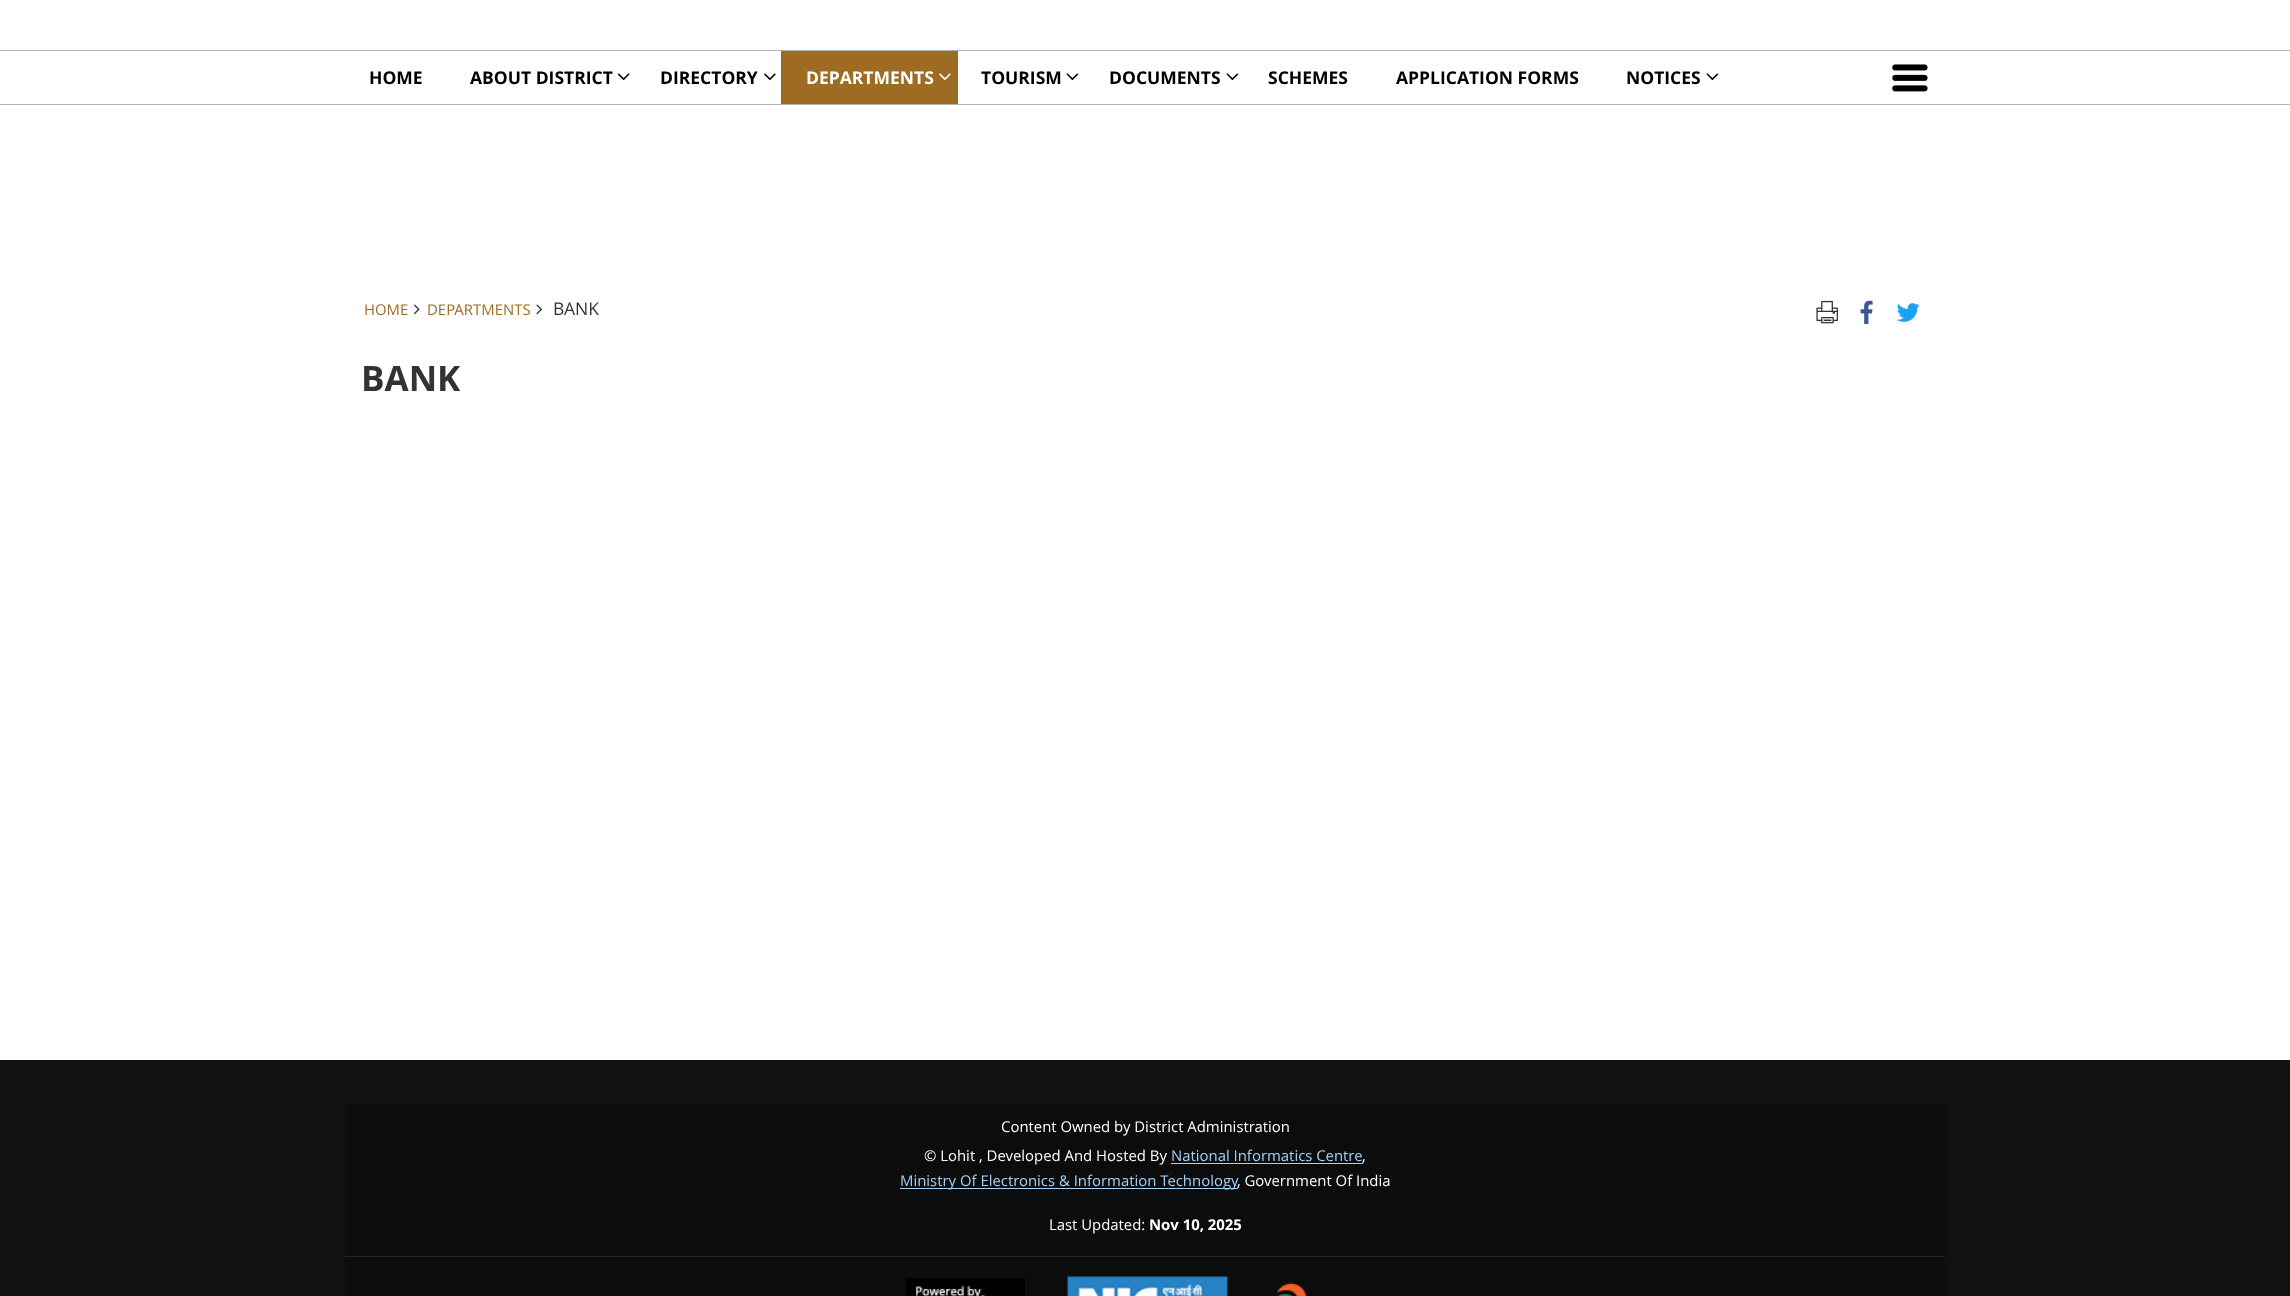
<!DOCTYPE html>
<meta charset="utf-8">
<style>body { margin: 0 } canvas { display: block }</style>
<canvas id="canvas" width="2290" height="1296"></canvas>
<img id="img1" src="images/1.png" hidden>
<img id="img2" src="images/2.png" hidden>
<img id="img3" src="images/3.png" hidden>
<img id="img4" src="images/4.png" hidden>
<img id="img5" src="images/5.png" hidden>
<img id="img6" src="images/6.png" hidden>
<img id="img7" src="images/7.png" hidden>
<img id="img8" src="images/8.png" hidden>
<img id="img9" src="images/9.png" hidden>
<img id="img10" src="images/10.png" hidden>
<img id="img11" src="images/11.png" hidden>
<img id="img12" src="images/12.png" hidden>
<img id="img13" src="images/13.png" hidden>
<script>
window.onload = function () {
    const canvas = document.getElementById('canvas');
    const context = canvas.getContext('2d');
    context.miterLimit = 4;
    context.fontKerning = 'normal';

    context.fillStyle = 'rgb(255, 255, 255)';
    context.fillRect(0, 0, 2290, 1296);
    context.fillStyle = 'rgb(179, 179, 179)';
    context.fillRect(0, 50, 2290, 1);
    context.fillRect(0, 104, 2290, 1);
    context.drawImage(document.getElementById('img1'), 617, 73, 13, 8);
    context.drawImage(document.getElementById('img2'), 764, 73, 12, 8);
    context.fillStyle = 'rgb(158, 107, 34)';
    context.fillRect(781, 51, 177, 53);
    context.drawImage(document.getElementById('img3'), 939, 73, 12, 8);
    context.drawImage(document.getElementById('img4'), 1066, 73, 13, 8);
    context.drawImage(document.getElementById('img4'), 1226, 73, 13, 8);
    context.drawImage(document.getElementById('img4'), 1706, 73, 13, 8);
    context.drawImage(document.getElementById('img5'), 1892, 64, 36, 28);
    context.drawImage(document.getElementById('img6'), 413, 304, 7, 11);
    context.drawImage(document.getElementById('img7'), 536, 304, 6, 11);
    context.drawImage(document.getElementById('img8'), 1816, 300, 22, 24);
    context.drawImage(document.getElementById('img9'), 1860, 300, 13, 24);
    context.drawImage(document.getElementById('img10'), 1896, 303, 24, 19);
    context.fillStyle = 'rgb(17, 17, 17)';
    context.fillRect(0, 1060, 2290, 236);
    context.fillStyle = 'rgb(12, 12, 12)';
    context.fillRect(345, 1104, 1600, 192);
    context.fillStyle = 'rgb(163, 210, 249)';
    context.fillRect(1171, 1163, 192, 1);
    context.fillRect(900, 1188, 338, 1);
    context.fillStyle = 'rgb(36, 36, 36)';
    context.fillRect(345, 1256, 1600, 1);
    context.drawImage(document.getElementById('img11'), 906, 1278, 119, 18);
    context.drawImage(document.getElementById('img12'), 1067, 1276, 161, 20);
    context.drawImage(document.getElementById('img13'), 1276, 1282, 31, 14);
    context.font = 'bold 17.5px Open Sans';
    context.fillStyle = 'rgb(0, 0, 0)';
    context.fillText('HOME', 369, 84);
    context.fillText('ABOUT DISTRICT', 470, 84);
    context.fillText('DIRECTORY', 660, 84);
    context.fillStyle = 'rgb(255, 255, 255)';
    context.fillText('DEPARTMENTS', 806, 84);
    context.fillStyle = 'rgb(0, 0, 0)';
    context.fillText('TOURISM', 981, 84);
    context.fillText('DOCUMENTS', 1109, 84);
    context.fillText('SCHEMES', 1268, 84);
    context.fillText('APPLICATION FORMS', 1396, 84);
    context.fillText('NOTICES', 1626, 84);
    context.font = '14.9px Open Sans';
    context.fillStyle = 'rgb(158, 107, 34)';
    context.fillText('HOME', 364, 315);
    context.fillText('DEPARTMENTS', 427, 315);
    context.font = '17.5px Open Sans';
    context.fillStyle = 'rgb(51, 51, 51)';
    context.fillText('BANK', 553, 315);
    context.font = 'bold 35px Open Sans';
    context.fillText('BANK', 361, 391);
    context.font = '14.9px Open Sans';
    context.fillStyle = 'rgb(255, 255, 255)';
    context.fillText('Content Owned by District Administration', 1001, 1132);
    context.fillText('© Lohit , Developed And Hosted By', 924, 1161);
    context.fillStyle = 'rgb(163, 210, 249)';
    context.fillText('National Informatics Centre', 1171, 1161);
    context.fillStyle = 'rgb(255, 255, 255)';
    context.fillText(',', 1362, 1161);
    context.fillStyle = 'rgb(163, 210, 249)';
    context.fillText('Ministry Of Electronics & Information Technology', 900, 1186);
    context.fillStyle = 'rgb(255, 255, 255)';
    context.fillText(', Government Of India', 1237, 1186);
    context.fillText('Last Updated:', 1049, 1230);
    context.font = 'bold 14.9px Open Sans';
    context.fillText('Nov 10, 2025', 1149, 1230);
};
</script>
